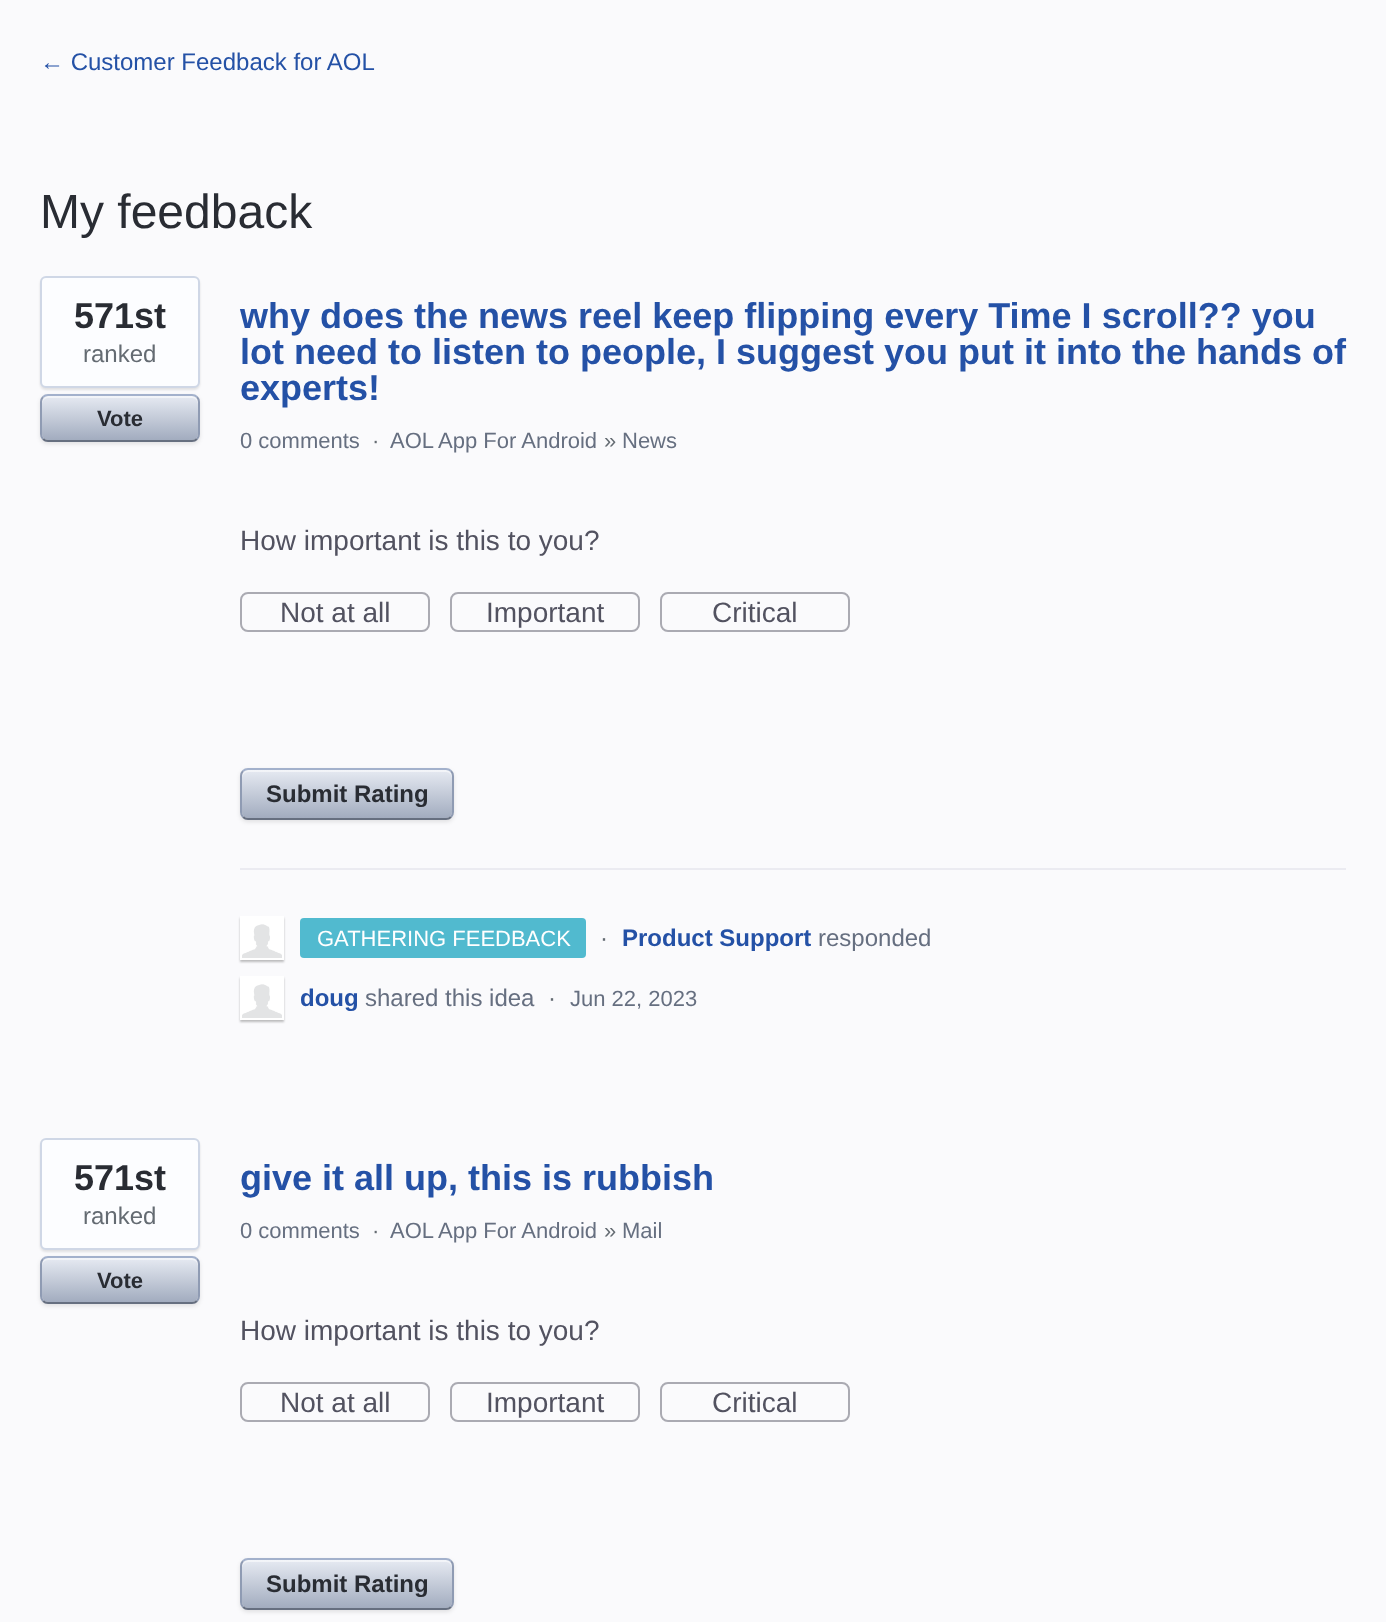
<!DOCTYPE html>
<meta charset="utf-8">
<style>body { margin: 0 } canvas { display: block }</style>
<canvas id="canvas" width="1386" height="1622"></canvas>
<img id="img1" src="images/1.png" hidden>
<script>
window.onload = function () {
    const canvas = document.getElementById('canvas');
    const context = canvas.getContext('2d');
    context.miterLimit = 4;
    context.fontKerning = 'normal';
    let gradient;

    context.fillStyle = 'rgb(250, 250, 252)';
    context.fillRect(0, 0, 1386, 1622);
    context.fillStyle = 'rgba(0, 0, 0, 0.1)';
    context.filter = 'blur(1px)';
    context.beginPath();
    context.roundRect(40, 278, 160, 112, 6);
    context.fill();
    context.filter = 'none';
    context.fillStyle = 'rgb(252, 253, 255)';
    context.beginPath();
    context.roundRect(41, 277, 158, 110, 5);
    context.fill();
    context.strokeStyle = 'rgb(207, 215, 230)';
    context.lineWidth = 2;
    context.stroke();
    context.fillStyle = 'rgba(0, 0, 0, 0.1)';
    context.filter = 'blur(2px)';
    context.beginPath();
    context.roundRect(40, 396, 160, 48, 8);
    context.fill();
    context.filter = 'none';
    gradient = context.createLinearGradient(42, 396, 42, 440);
    gradient.addColorStop(0, 'rgb(230, 234, 242)');
    gradient.addColorStop(1, 'rgb(162, 172, 191)');
    context.fillStyle = gradient;
    context.beginPath();
    context.roundRect(42, 396, 156, 44, 6);
    context.fill();
    context.fillStyle = 'rgba(255, 255, 255, 0.5)';
    context.beginPath();
    context.moveTo(48, 398);
    context.lineTo(192, 398);
    context.bezierCurveTo(195, 398, 198, 401, 198, 404);
    context.lineTo(198, 402);
    context.bezierCurveTo(198, 399, 195, 396, 192, 396);
    context.lineTo(48, 396);
    context.bezierCurveTo(45, 396, 42, 399, 42, 402);
    context.lineTo(42, 404);
    context.bezierCurveTo(42, 401, 45, 398, 48, 398);
    context.closePath();
    context.fill();
    context.beginPath();
    context.moveTo(43, 397);
    context.bezierCurveTo(44.5, 395.5, 46, 395, 48, 395);
    context.lineTo(192, 395);
    context.bezierCurveTo(194, 395, 195.5, 395.5, 197, 397);
    context.strokeStyle = 'rgb(163, 177, 204)';
    context.stroke();
    context.beginPath();
    context.moveTo(197, 397);
    context.bezierCurveTo(198.5, 398.5, 199, 400, 199, 402);
    context.lineTo(199, 434);
    context.bezierCurveTo(199, 436, 198.5, 437.5, 197, 439);
    context.strokeStyle = 'rgb(143, 155, 179)';
    context.stroke();
    context.beginPath();
    context.moveTo(197, 439);
    context.bezierCurveTo(195.5, 440.5, 194, 441, 192, 441);
    context.lineTo(48, 441);
    context.bezierCurveTo(46, 441, 44.5, 440.5, 43, 439);
    context.strokeStyle = 'rgb(102, 111, 128)';
    context.stroke();
    context.beginPath();
    context.moveTo(43, 439);
    context.bezierCurveTo(41.5, 437.5, 41, 436, 41, 434);
    context.lineTo(41, 402);
    context.bezierCurveTo(41, 400, 41.5, 398.5, 43, 397);
    context.strokeStyle = 'rgb(143, 155, 179)';
    context.stroke();
    context.fillStyle = 'rgb(235, 235, 241)';
    context.fillRect(240, 868, 1106, 2);
    context.beginPath();
    context.roundRect(241, 593, 188, 38, 7);
    context.strokeStyle = 'rgb(170, 170, 178)';
    context.stroke();
    context.beginPath();
    context.roundRect(451, 593, 188, 38, 7);
    context.stroke();
    context.beginPath();
    context.roundRect(661, 593, 188, 38, 7);
    context.stroke();
    context.fillStyle = 'rgba(0, 0, 0, 0.1)';
    context.filter = 'blur(2px)';
    context.beginPath();
    context.roundRect(240, 770, 214, 52, 8);
    context.fill();
    context.filter = 'none';
    gradient = context.createLinearGradient(242, 770, 242, 818);
    gradient.addColorStop(0, 'rgb(230, 234, 242)');
    gradient.addColorStop(1, 'rgb(162, 172, 191)');
    context.fillStyle = gradient;
    context.beginPath();
    context.roundRect(242, 770, 210, 48, 6);
    context.fill();
    context.fillStyle = 'rgba(255, 255, 255, 0.5)';
    context.beginPath();
    context.moveTo(248, 772);
    context.lineTo(446, 772);
    context.bezierCurveTo(449, 772, 452, 775, 452, 778);
    context.lineTo(452, 776);
    context.bezierCurveTo(452, 773, 449, 770, 446, 770);
    context.lineTo(248, 770);
    context.bezierCurveTo(245, 770, 242, 773, 242, 776);
    context.lineTo(242, 778);
    context.bezierCurveTo(242, 775, 245, 772, 248, 772);
    context.closePath();
    context.fill();
    context.beginPath();
    context.moveTo(243, 771);
    context.bezierCurveTo(244.5, 769.5, 246, 769, 248, 769);
    context.lineTo(446, 769);
    context.bezierCurveTo(448, 769, 449.5, 769.5, 451, 771);
    context.strokeStyle = 'rgb(163, 177, 204)';
    context.stroke();
    context.beginPath();
    context.moveTo(451, 771);
    context.bezierCurveTo(452.5, 772.5, 453, 774, 453, 776);
    context.lineTo(453, 812);
    context.bezierCurveTo(453, 814, 452.5, 815.5, 451, 817);
    context.strokeStyle = 'rgb(143, 155, 179)';
    context.stroke();
    context.beginPath();
    context.moveTo(451, 817);
    context.bezierCurveTo(449.5, 818.5, 448, 819, 446, 819);
    context.lineTo(248, 819);
    context.bezierCurveTo(246, 819, 244.5, 818.5, 243, 817);
    context.strokeStyle = 'rgb(102, 111, 128)';
    context.stroke();
    context.beginPath();
    context.moveTo(243, 817);
    context.bezierCurveTo(241.5, 815.5, 241, 814, 241, 812);
    context.lineTo(241, 776);
    context.bezierCurveTo(241, 774, 241.5, 772.5, 243, 771);
    context.strokeStyle = 'rgb(143, 155, 179)';
    context.stroke();
    context.fillStyle = 'rgb(81, 186, 207)';
    context.beginPath();
    context.roundRect(300, 918, 286, 40, 4);
    context.fill();
    context.fillStyle = 'rgba(0, 0, 0, 0.25)';
    context.filter = 'blur(1px)';
    context.beginPath();
    context.rect(240, 918, 44, 44);
    context.fill();
    context.filter = 'none';
    context.strokeStyle = 'rgb(255, 255, 255)';
    context.strokeRect(241, 917, 42, 42);
    context.drawImage(document.getElementById('img1'), 242, 918, 40, 40);
    context.filter = 'blur(1px)';
    context.beginPath();
    context.rect(240, 978, 44, 44);
    context.fill();
    context.filter = 'none';
    context.strokeRect(241, 977, 42, 42);
    context.drawImage(document.getElementById('img1'), 242, 978, 40, 40);
    context.fillStyle = 'rgba(0, 0, 0, 0.1)';
    context.filter = 'blur(1px)';
    context.beginPath();
    context.roundRect(40, 1140, 160, 112, 6);
    context.fill();
    context.filter = 'none';
    context.fillStyle = 'rgb(252, 253, 255)';
    context.beginPath();
    context.roundRect(41, 1139, 158, 110, 5);
    context.fill();
    context.strokeStyle = 'rgb(207, 215, 230)';
    context.stroke();
    context.fillStyle = 'rgba(0, 0, 0, 0.1)';
    context.filter = 'blur(2px)';
    context.beginPath();
    context.roundRect(40, 1258, 160, 48, 8);
    context.fill();
    context.filter = 'none';
    gradient = context.createLinearGradient(42, 1258, 42, 1302);
    gradient.addColorStop(0, 'rgb(230, 234, 242)');
    gradient.addColorStop(1, 'rgb(162, 172, 191)');
    context.fillStyle = gradient;
    context.beginPath();
    context.roundRect(42, 1258, 156, 44, 6);
    context.fill();
    context.fillStyle = 'rgba(255, 255, 255, 0.5)';
    context.beginPath();
    context.moveTo(48, 1260);
    context.lineTo(192, 1260);
    context.bezierCurveTo(195, 1260, 198, 1263, 198, 1266);
    context.lineTo(198, 1264);
    context.bezierCurveTo(198, 1261, 195, 1258, 192, 1258);
    context.lineTo(48, 1258);
    context.bezierCurveTo(45, 1258, 42, 1261, 42, 1264);
    context.lineTo(42, 1266);
    context.bezierCurveTo(42, 1263, 45, 1260, 48, 1260);
    context.closePath();
    context.fill();
    context.beginPath();
    context.moveTo(43, 1259);
    context.bezierCurveTo(44.5, 1257.5, 46, 1257, 48, 1257);
    context.lineTo(192, 1257);
    context.bezierCurveTo(194, 1257, 195.5, 1257.5, 197, 1259);
    context.strokeStyle = 'rgb(163, 177, 204)';
    context.stroke();
    context.beginPath();
    context.moveTo(197, 1259);
    context.bezierCurveTo(198.5, 1260.5, 199, 1262, 199, 1264);
    context.lineTo(199, 1296);
    context.bezierCurveTo(199, 1298, 198.5, 1299.5, 197, 1301);
    context.strokeStyle = 'rgb(143, 155, 179)';
    context.stroke();
    context.beginPath();
    context.moveTo(197, 1301);
    context.bezierCurveTo(195.5, 1302.5, 194, 1303, 192, 1303);
    context.lineTo(48, 1303);
    context.bezierCurveTo(46, 1303, 44.5, 1302.5, 43, 1301);
    context.strokeStyle = 'rgb(102, 111, 128)';
    context.stroke();
    context.beginPath();
    context.moveTo(43, 1301);
    context.bezierCurveTo(41.5, 1299.5, 41, 1298, 41, 1296);
    context.lineTo(41, 1264);
    context.bezierCurveTo(41, 1262, 41.5, 1260.5, 43, 1259);
    context.strokeStyle = 'rgb(143, 155, 179)';
    context.stroke();
    context.beginPath();
    context.roundRect(241, 1383, 188, 38, 7);
    context.strokeStyle = 'rgb(170, 170, 178)';
    context.stroke();
    context.beginPath();
    context.roundRect(451, 1383, 188, 38, 7);
    context.stroke();
    context.beginPath();
    context.roundRect(661, 1383, 188, 38, 7);
    context.stroke();
    context.fillStyle = 'rgba(0, 0, 0, 0.1)';
    context.filter = 'blur(2px)';
    context.beginPath();
    context.roundRect(240, 1560, 214, 52, 8);
    context.fill();
    context.filter = 'none';
    gradient = context.createLinearGradient(242, 1560, 242, 1608);
    gradient.addColorStop(0, 'rgb(230, 234, 242)');
    gradient.addColorStop(1, 'rgb(162, 172, 191)');
    context.fillStyle = gradient;
    context.beginPath();
    context.roundRect(242, 1560, 210, 48, 6);
    context.fill();
    context.fillStyle = 'rgba(255, 255, 255, 0.5)';
    context.beginPath();
    context.moveTo(248, 1562);
    context.lineTo(446, 1562);
    context.bezierCurveTo(449, 1562, 452, 1565, 452, 1568);
    context.lineTo(452, 1566);
    context.bezierCurveTo(452, 1563, 449, 1560, 446, 1560);
    context.lineTo(248, 1560);
    context.bezierCurveTo(245, 1560, 242, 1563, 242, 1566);
    context.lineTo(242, 1568);
    context.bezierCurveTo(242, 1565, 245, 1562, 248, 1562);
    context.closePath();
    context.fill();
    context.beginPath();
    context.moveTo(243, 1561);
    context.bezierCurveTo(244.5, 1559.5, 246, 1559, 248, 1559);
    context.lineTo(446, 1559);
    context.bezierCurveTo(448, 1559, 449.5, 1559.5, 451, 1561);
    context.strokeStyle = 'rgb(163, 177, 204)';
    context.stroke();
    context.beginPath();
    context.moveTo(451, 1561);
    context.bezierCurveTo(452.5, 1562.5, 453, 1564, 453, 1566);
    context.lineTo(453, 1602);
    context.bezierCurveTo(453, 1604, 452.5, 1605.5, 451, 1607);
    context.strokeStyle = 'rgb(143, 155, 179)';
    context.stroke();
    context.beginPath();
    context.moveTo(451, 1607);
    context.bezierCurveTo(449.5, 1608.5, 448, 1609, 446, 1609);
    context.lineTo(248, 1609);
    context.bezierCurveTo(246, 1609, 244.5, 1608.5, 243, 1607);
    context.strokeStyle = 'rgb(102, 111, 128)';
    context.stroke();
    context.beginPath();
    context.moveTo(243, 1607);
    context.bezierCurveTo(241.5, 1605.5, 241, 1604, 241, 1602);
    context.lineTo(241, 1566);
    context.bezierCurveTo(241, 1564, 241.5, 1562.5, 243, 1561);
    context.strokeStyle = 'rgb(143, 155, 179)';
    context.stroke();
    context.font = '24px Liberation Sans';
    context.fillStyle = 'rgb(36, 81, 166)';
    context.fillText('← Customer Feedback for AOL', 40, 70);
    context.font = '48px Liberation Sans';
    context.fillStyle = 'rgb(41, 44, 51)';
    context.fillText('My feedback', 40, 228);
    context.font = 'bold 36px Liberation Sans';
    context.fillText('571st', 74, 328);
    context.font = '24px Liberation Sans';
    context.fillStyle = 'rgb(100, 107, 114)';
    context.fillText('ranked', 83, 362);
    context.font = 'bold 22px Liberation Sans';
    context.fillStyle = 'rgb(41, 44, 51)';
    context.fillText('Vote', 97, 426);
    context.font = 'bold 36px Liberation Sans';
    context.fillStyle = 'rgb(36, 81, 166)';
    context.fillText('why does the news reel keep flipping every Time I scroll?? you', 240, 328);
    context.fillText('lot need to listen to people, I suggest you put it into the hands of', 240, 364);
    context.fillText('experts!', 240, 400);
    context.font = '22px Liberation Sans';
    context.fillStyle = 'rgb(102, 111, 128)';
    context.fillText('0 comments', 240, 448);
    context.fillStyle = 'rgb(100, 107, 114)';
    context.fillText('·', 372, 448);
    context.fillStyle = 'rgb(102, 111, 128)';
    context.fillText('AOL App For Android', 390, 448);
    context.fillStyle = 'rgb(100, 107, 114)';
    context.fillText('»', 604, 448);
    context.fillStyle = 'rgb(102, 111, 128)';
    context.fillText('News', 622, 448);
    context.font = '28px Liberation Sans';
    context.fillStyle = 'rgb(82, 82, 96)';
    context.fillText('How important is this to you?', 240, 550);
    context.fillText('Not at all', 280, 622);
    context.fillText('Important', 486, 622);
    context.fillText('Critical', 712, 622);
    context.font = 'bold 24px Liberation Sans';
    context.fillStyle = 'rgb(41, 44, 51)';
    context.fillText('Submit Rating', 266, 802);
    context.font = '22px Liberation Sans';
    context.fillStyle = 'rgb(255, 255, 255)';
    context.fillText('GATHERING FEEDBACK', 317, 946);
    context.font = '24px Liberation Sans';
    context.fillStyle = 'rgb(100, 107, 114)';
    context.fillText('·', 600, 946);
    context.font = 'bold 24px Liberation Sans';
    context.fillStyle = 'rgb(36, 81, 166)';
    context.fillText('Product Support', 622, 946);
    context.font = '24px Liberation Sans';
    context.fillStyle = 'rgb(102, 111, 128)';
    context.fillText('responded', 818, 946);
    context.font = 'bold 24px Liberation Sans';
    context.fillStyle = 'rgb(36, 81, 166)';
    context.fillText('doug', 300, 1006);
    context.font = '24px Liberation Sans';
    context.fillStyle = 'rgb(102, 111, 128)';
    context.fillText('shared this idea', 365, 1006);
    context.fillStyle = 'rgb(100, 107, 114)';
    context.fillText('·', 548, 1006);
    context.font = '22px Liberation Sans';
    context.fillStyle = 'rgb(102, 111, 128)';
    context.fillText('Jun 22, 2023', 570, 1006);
    context.font = 'bold 36px Liberation Sans';
    context.fillStyle = 'rgb(41, 44, 51)';
    context.fillText('571st', 74, 1190);
    context.font = '24px Liberation Sans';
    context.fillStyle = 'rgb(100, 107, 114)';
    context.fillText('ranked', 83, 1224);
    context.font = 'bold 22px Liberation Sans';
    context.fillStyle = 'rgb(41, 44, 51)';
    context.fillText('Vote', 97, 1288);
    context.font = 'bold 36px Liberation Sans';
    context.fillStyle = 'rgb(36, 81, 166)';
    context.fillText('give it all up, this is rubbish', 240, 1190);
    context.font = '22px Liberation Sans';
    context.fillStyle = 'rgb(102, 111, 128)';
    context.fillText('0 comments', 240, 1238);
    context.fillStyle = 'rgb(100, 107, 114)';
    context.fillText('·', 372, 1238);
    context.fillStyle = 'rgb(102, 111, 128)';
    context.fillText('AOL App For Android', 390, 1238);
    context.fillStyle = 'rgb(100, 107, 114)';
    context.fillText('»', 604, 1238);
    context.fillStyle = 'rgb(102, 111, 128)';
    context.fillText('Mail', 622, 1238);
    context.font = '28px Liberation Sans';
    context.fillStyle = 'rgb(82, 82, 96)';
    context.fillText('How important is this to you?', 240, 1340);
    context.fillText('Not at all', 280, 1412);
    context.fillText('Important', 486, 1412);
    context.fillText('Critical', 712, 1412);
    context.font = 'bold 24px Liberation Sans';
    context.fillStyle = 'rgb(41, 44, 51)';
    context.fillText('Submit Rating', 266, 1592);
};
</script>
